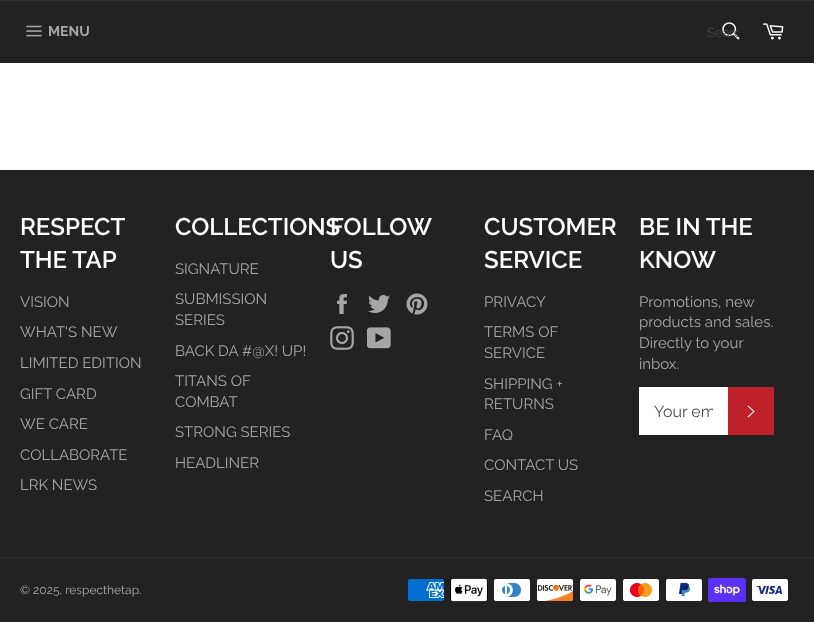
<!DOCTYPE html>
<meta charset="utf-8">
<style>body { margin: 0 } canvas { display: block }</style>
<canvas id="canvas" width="814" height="622"></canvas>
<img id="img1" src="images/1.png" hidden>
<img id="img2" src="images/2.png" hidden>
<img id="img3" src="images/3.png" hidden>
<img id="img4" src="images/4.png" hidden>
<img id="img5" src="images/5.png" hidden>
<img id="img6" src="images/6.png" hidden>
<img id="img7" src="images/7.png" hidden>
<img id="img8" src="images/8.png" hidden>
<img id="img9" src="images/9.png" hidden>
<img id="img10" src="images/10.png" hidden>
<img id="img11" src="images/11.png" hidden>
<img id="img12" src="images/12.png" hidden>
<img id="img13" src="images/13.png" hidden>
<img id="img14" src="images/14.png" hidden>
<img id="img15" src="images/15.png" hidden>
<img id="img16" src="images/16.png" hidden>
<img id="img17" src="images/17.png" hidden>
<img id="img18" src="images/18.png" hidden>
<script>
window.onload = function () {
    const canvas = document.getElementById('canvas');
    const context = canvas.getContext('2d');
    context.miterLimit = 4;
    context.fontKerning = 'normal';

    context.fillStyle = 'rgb(255, 255, 255)';
    context.fillRect(0, 0, 814, 622);
    context.fillStyle = 'rgb(34, 34, 34)';
    context.fillRect(0, 1, 814, 62);
    context.fillStyle = 'rgb(47, 47, 47)';
    context.fillRect(0, 0, 814, 1);
    context.drawImage(document.getElementById('img1'), 26, 25, 16, 12);
    context.drawImage(document.getElementById('img2'), 722, 22, 18, 18);
    context.drawImage(document.getElementById('img3'), 762, 23, 22, 17);
    context.fillStyle = 'rgb(34, 34, 34)';
    context.fillRect(0, 170, 814, 452);
    context.drawImage(document.getElementById('img4'), 337, 294, 10, 20);
    context.drawImage(document.getElementById('img5'), 368, 295, 22, 18);
    context.drawImage(document.getElementById('img6'), 406, 293, 22, 22);
    context.drawImage(document.getElementById('img7'), 330, 326, 24, 24);
    context.drawImage(document.getElementById('img8'), 367, 327, 24, 22);
    context.fillStyle = 'rgb(255, 255, 255)';
    context.fillRect(639, 387, 89, 48);
    context.fillStyle = 'rgb(190, 33, 42)';
    context.fillRect(728, 387, 46, 48);
    context.drawImage(document.getElementById('img9'), 747, 405, 8, 13);
    context.fillStyle = 'rgb(47, 47, 47)';
    context.fillRect(0, 557, 814, 1);
    context.drawImage(document.getElementById('img10'), 408, 579, 36, 22);
    context.drawImage(document.getElementById('img11'), 450, 578, 38, 24);
    context.drawImage(document.getElementById('img12'), 494, 579, 36, 22);
    context.drawImage(document.getElementById('img13'), 537, 579, 36, 22);
    context.drawImage(document.getElementById('img14'), 580, 579, 36, 22);
    context.drawImage(document.getElementById('img15'), 623, 579, 36, 22);
    context.drawImage(document.getElementById('img16'), 666, 579, 36, 22);
    context.drawImage(document.getElementById('img17'), 708, 578, 38, 24);
    context.drawImage(document.getElementById('img18'), 752, 579, 36, 22);
    context.font = 'bold 14px Raleway';
    context.fillStyle = 'rgb(167, 167, 167)';
    context.fillText('MENU', 48, 36);
    context.save();
    context.beginPath();
    context.rect(707, 25, 32, 15);
    context.clip();
    context.font = '13px Raleway';
    context.fillStyle = 'rgb(69, 69, 69)';
    context.fillText('Searc', 707, 37);
    context.restore();
    context.font = '600 24px Raleway';
    context.fillStyle = 'rgb(255, 255, 255)';
    context.fillText('RESPECT', 20, 235);
    context.fillText('THE TAP', 20, 268);
    context.font = '15px Raleway';
    context.fillStyle = 'rgb(167, 167, 167)';
    context.fillText('VISION', 20, 307);
    context.fillText('WHAT\'S NEW', 20, 337);
    context.fillText('LIMITED EDITION', 20, 368);
    context.fillText('GIFT CARD', 20, 399);
    context.fillText('WE CARE', 20, 429);
    context.fillText('COLLABORATE', 20, 460);
    context.fillText('LRK NEWS', 20, 490);
    context.font = '600 24px Raleway';
    context.fillStyle = 'rgb(255, 255, 255)';
    context.fillText('COLLECTIONS', 175, 235);
    context.font = '15px Raleway';
    context.fillStyle = 'rgb(167, 167, 167)';
    context.fillText('SIGNATURE', 175, 274);
    context.fillText('SUBMISSION', 175, 304);
    context.fillText('SERIES', 175, 325);
    context.fillText('BACK DA #@X! UP!', 175, 356);
    context.fillText('TITANS OF', 175, 386);
    context.fillText('COMBAT', 175, 407);
    context.fillText('STRONG SERIES', 175, 437);
    context.fillText('HEADLINER', 175, 468);
    context.font = '600 24px Raleway';
    context.fillStyle = 'rgb(255, 255, 255)';
    context.fillText('FOLLOW', 330, 235);
    context.fillText('US', 330, 268);
    context.fillText('CUSTOMER', 484, 235);
    context.fillText('SERVICE', 484, 268);
    context.font = '15px Raleway';
    context.fillStyle = 'rgb(167, 167, 167)';
    context.fillText('PRIVACY', 484, 307);
    context.fillText('TERMS OF', 484, 337);
    context.fillText('SERVICE', 484, 358);
    context.fillText('SHIPPING +', 484, 389);
    context.fillText('RETURNS', 484, 409);
    context.fillText('FAQ', 484, 440);
    context.fillText('CONTACT US', 484, 470);
    context.fillText('SEARCH', 484, 501);
    context.font = '600 24px Raleway';
    context.fillStyle = 'rgb(255, 255, 255)';
    context.fillText('BE IN THE', 639, 235);
    context.fillText('KNOW', 639, 268);
    context.font = '15px Raleway';
    context.fillStyle = 'rgb(167, 167, 167)';
    context.fillText('Promotions, new', 639, 307);
    context.fillText('products and sales.', 639, 327);
    context.fillText('Directly to your', 639, 348);
    context.fillText('inbox.', 639, 369);
    context.save();
    context.beginPath();
    context.rect(654, 402, 59, 19);
    context.clip();
    context.font = '16px Raleway';
    context.fillStyle = 'rgb(77, 77, 77)';
    context.fillText('Your em', 654, 417);
    context.restore();
    context.font = '12px Raleway';
    context.fillText('© 2025, respecthetap.', 20, 594);
};
</script>
